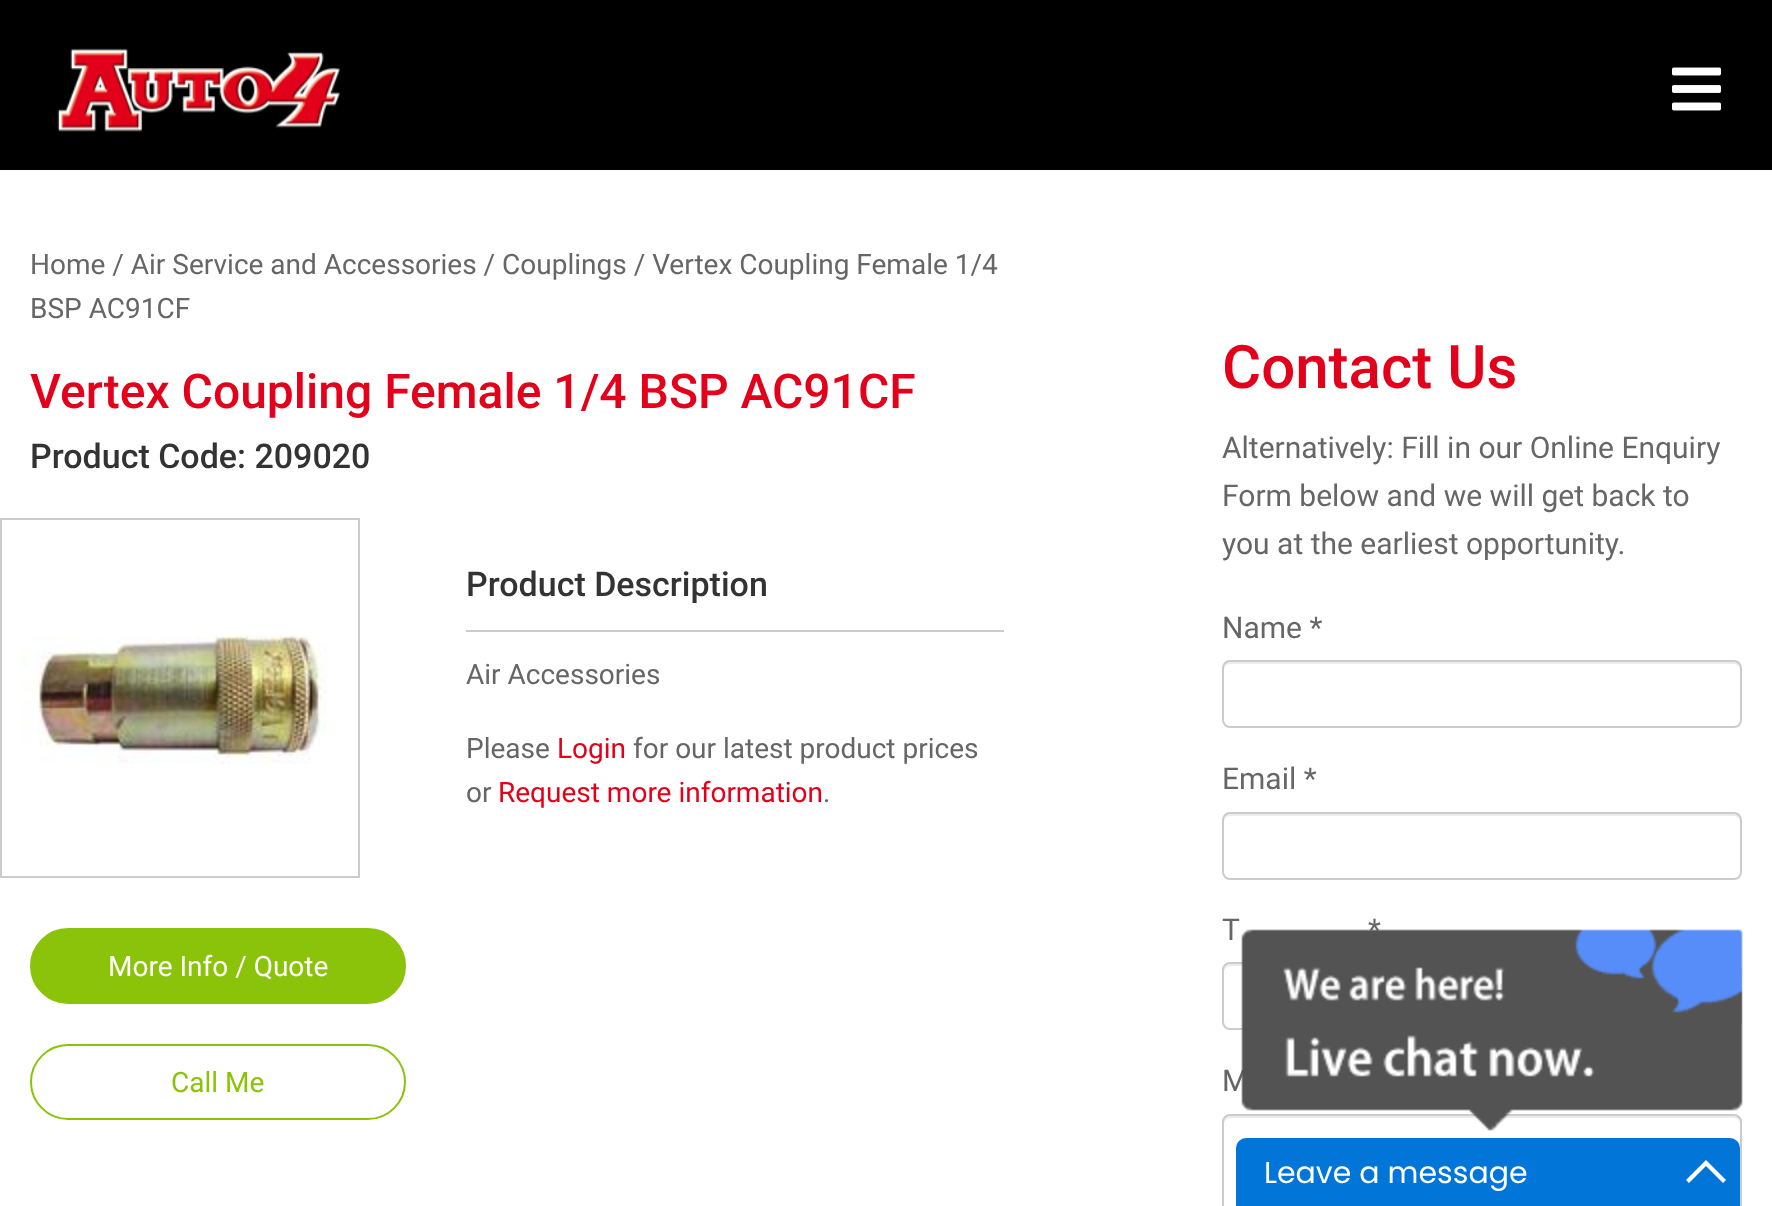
<!DOCTYPE html>
<meta charset="utf-8">
<style>body { margin: 0 } canvas { display: block }</style>
<canvas id="canvas" width="1772" height="1206"></canvas>
<img id="img1" src="images/1.png" hidden>
<img id="img2" src="images/2.png" hidden>
<img id="img3" src="images/3.png" hidden>
<img id="img4" src="images/4.png" hidden>
<script>
window.onload = function () {
    const canvas = document.getElementById('canvas');
    const context = canvas.getContext('2d');
    context.miterLimit = 4;
    context.fontKerning = 'normal';

    context.fillStyle = 'rgb(255, 255, 255)';
    context.fillRect(0, 0, 1772, 1206);
    context.fillStyle = 'rgb(0, 0, 0)';
    context.fillRect(0, 0, 1772, 170);
    context.drawImage(document.getElementById('img1'), 57, 48, 283, 84);
    context.drawImage(document.getElementById('img2'), 1672, 67, 49, 44);
    context.fillStyle = 'rgb(204, 204, 204)';
    context.fillRect(466, 630, 538, 2);
    context.strokeStyle = 'rgb(204, 204, 204)';
    context.lineWidth = 2;
    context.strokeRect(1, 519, 358, 358);
    context.drawImage(document.getElementById('img3'), 22, 634, 305, 130);
    context.fillStyle = 'rgb(139, 195, 11)';
    context.beginPath();
    context.roundRect(31, 929, 374, 74, 37);
    context.fill();
    context.strokeStyle = 'rgb(139, 195, 11)';
    context.stroke();
    context.beginPath();
    context.roundRect(31, 1045, 374, 74, 37);
    context.stroke();
    context.fillStyle = 'rgb(236, 236, 236)';
    context.beginPath();
    context.moveTo(1230, 664);
    context.lineTo(1734, 664);
    context.bezierCurveTo(1737, 664, 1740, 667, 1740, 670);
    context.lineTo(1740, 668);
    context.bezierCurveTo(1740, 665, 1737, 662, 1734, 662);
    context.lineTo(1230, 662);
    context.bezierCurveTo(1227, 662, 1224, 665, 1224, 668);
    context.lineTo(1224, 670);
    context.bezierCurveTo(1224, 667, 1227, 664, 1230, 664);
    context.closePath();
    context.fill();
    context.beginPath();
    context.roundRect(1223, 661, 518, 66, 7);
    context.strokeStyle = 'rgb(204, 204, 204)';
    context.stroke();
    context.beginPath();
    context.moveTo(1230, 816);
    context.lineTo(1734, 816);
    context.bezierCurveTo(1737, 816, 1740, 819, 1740, 822);
    context.lineTo(1740, 820);
    context.bezierCurveTo(1740, 817, 1737, 814, 1734, 814);
    context.lineTo(1230, 814);
    context.bezierCurveTo(1227, 814, 1224, 817, 1224, 820);
    context.lineTo(1224, 822);
    context.bezierCurveTo(1224, 819, 1227, 816, 1230, 816);
    context.closePath();
    context.fill();
    context.beginPath();
    context.roundRect(1223, 813, 518, 66, 7);
    context.stroke();
    context.beginPath();
    context.moveTo(1230, 966);
    context.lineTo(1734, 966);
    context.bezierCurveTo(1737, 966, 1740, 969, 1740, 972);
    context.lineTo(1740, 970);
    context.bezierCurveTo(1740, 967, 1737, 964, 1734, 964);
    context.lineTo(1230, 964);
    context.bezierCurveTo(1227, 964, 1224, 967, 1224, 970);
    context.lineTo(1224, 972);
    context.bezierCurveTo(1224, 969, 1227, 966, 1230, 966);
    context.closePath();
    context.fill();
    context.beginPath();
    context.roundRect(1223, 963, 518, 66, 7);
    context.stroke();
    context.beginPath();
    context.moveTo(1230, 1118);
    context.lineTo(1734, 1118);
    context.bezierCurveTo(1737, 1118, 1740, 1121, 1740, 1124);
    context.lineTo(1740, 1122);
    context.bezierCurveTo(1740, 1119, 1737, 1116, 1734, 1116);
    context.lineTo(1230, 1116);
    context.bezierCurveTo(1227, 1116, 1224, 1119, 1224, 1122);
    context.lineTo(1224, 1124);
    context.bezierCurveTo(1224, 1121, 1227, 1118, 1230, 1118);
    context.closePath();
    context.fill();
    context.beginPath();
    context.roundRect(1223, 1115, 518, 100, 7);
    context.stroke();
    context.fillStyle = 'rgb(2, 117, 216)';
    context.beginPath();
    context.roundRect(1236, 1138, 504, 68, [10, 10, 0, 0]);
    context.fill();
    context.fillStyle = 'rgb(255, 255, 255)';
    context.beginPath();
    context.moveTo(1706, 1160);
    context.lineTo(1726, 1180);
    context.lineTo(1723, 1183);
    context.lineTo(1706, 1166);
    context.lineTo(1689, 1183);
    context.lineTo(1686, 1180);
    context.closePath();
    context.fill();
    context.font = '28px Roboto';
    context.fillStyle = 'rgb(102, 102, 102)';
    context.fillText('Home / Air Service and Accessories / Couplings / Vertex Coupling Female 1/4', 30, 274);
    context.fillText('BSP AC91CF', 30, 318);
    context.font = '500 48px Roboto';
    context.fillStyle = 'rgb(227, 0, 27)';
    context.fillText('Vertex Coupling Female 1/4 BSP AC91CF', 30, 408);
    context.font = '500 34px Roboto';
    context.fillStyle = 'rgb(51, 51, 51)';
    context.fillText('Product Code: 209020', 30, 468);
    context.fillText('Product Description', 466, 596);
    context.font = '28px Roboto';
    context.fillStyle = 'rgb(102, 102, 102)';
    context.fillText('Air Accessories', 466, 684);
    context.fillText('Please', 466, 758);
    context.fillStyle = 'rgb(227, 0, 27)';
    context.fillText('Login', 557, 758);
    context.fillStyle = 'rgb(102, 102, 102)';
    context.fillText('for our latest product prices', 633, 758);
    context.fillText('or', 466, 802);
    context.fillStyle = 'rgb(227, 0, 27)';
    context.fillText('Request more information', 498, 802);
    context.fillStyle = 'rgb(102, 102, 102)';
    context.fillText('.', 823, 802);
    context.fillStyle = 'rgb(255, 255, 255)';
    context.fillText('More Info / Quote', 108, 976);
    context.fillStyle = 'rgb(139, 195, 11)';
    context.fillText('Call Me', 171, 1092);
    context.font = '500 60px Roboto';
    context.fillStyle = 'rgb(227, 0, 27)';
    context.fillText('Contact Us', 1222, 388);
    context.font = '30px Roboto';
    context.fillStyle = 'rgb(102, 102, 102)';
    context.fillText('Alternatively: Fill in our Online Enquiry', 1222, 458);
    context.fillText('Form below and we will get back to', 1222, 506);
    context.fillText('you at the earliest opportunity.', 1222, 554);
    context.fillText('Name *', 1222, 638);
    context.fillText('Email *', 1222, 789);
    context.fillText('T', 1222, 940);
    context.fillText('*', 1368, 940);
    context.fillText('M', 1222, 1091);
    context.drawImage(document.getElementById('img4'), 1241, 929, 502, 202);
    context.font = '30px Poppins';
    context.fillStyle = 'rgb(255, 255, 255)';
    context.fillText('Leave a message', 1264, 1183);
};
</script>
